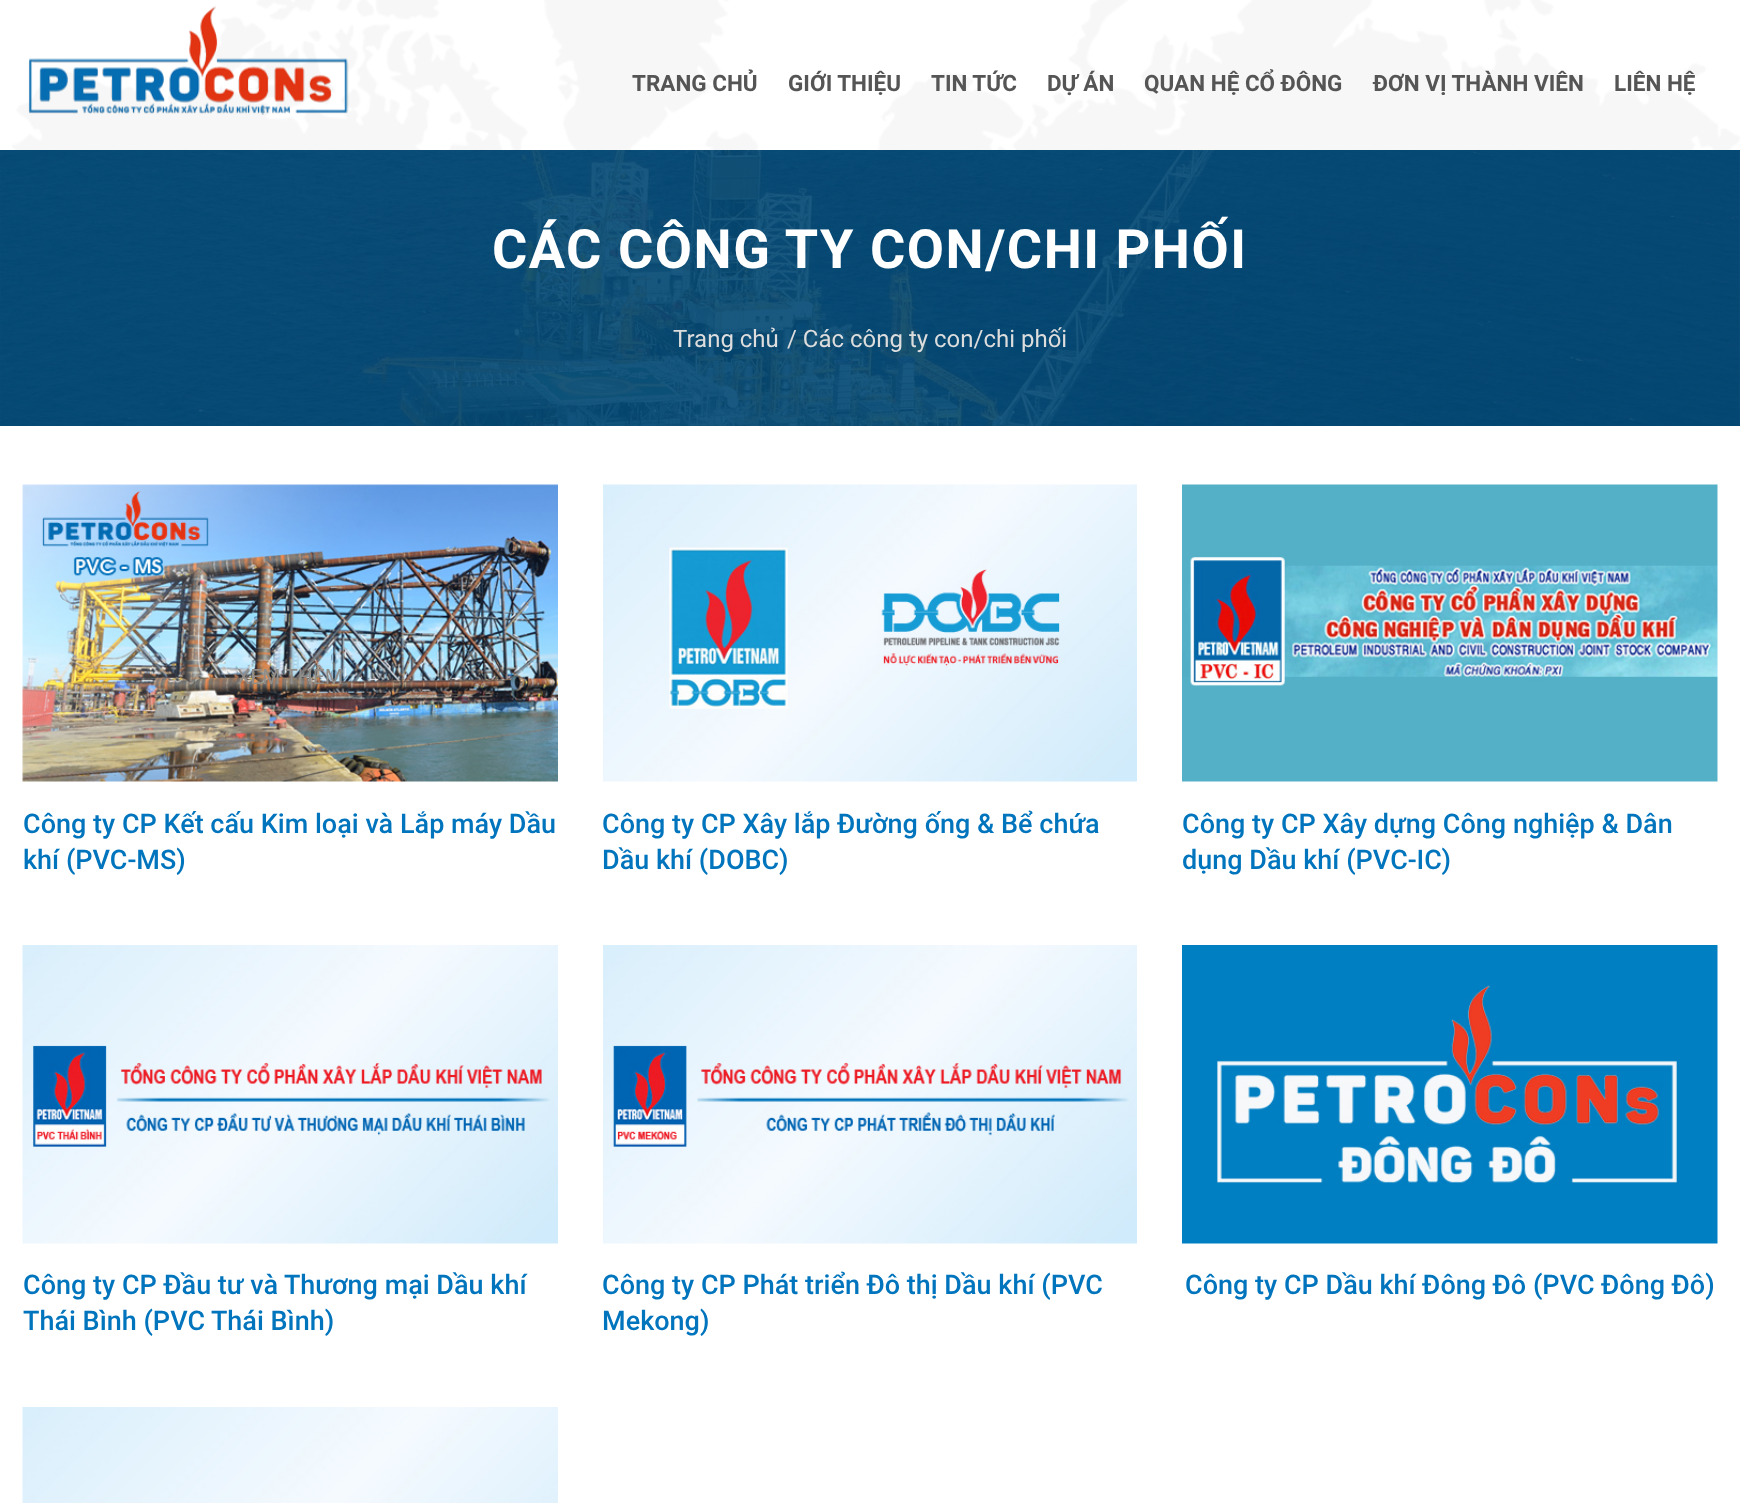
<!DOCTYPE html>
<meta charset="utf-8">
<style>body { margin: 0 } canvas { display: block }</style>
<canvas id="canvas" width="1740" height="1503"></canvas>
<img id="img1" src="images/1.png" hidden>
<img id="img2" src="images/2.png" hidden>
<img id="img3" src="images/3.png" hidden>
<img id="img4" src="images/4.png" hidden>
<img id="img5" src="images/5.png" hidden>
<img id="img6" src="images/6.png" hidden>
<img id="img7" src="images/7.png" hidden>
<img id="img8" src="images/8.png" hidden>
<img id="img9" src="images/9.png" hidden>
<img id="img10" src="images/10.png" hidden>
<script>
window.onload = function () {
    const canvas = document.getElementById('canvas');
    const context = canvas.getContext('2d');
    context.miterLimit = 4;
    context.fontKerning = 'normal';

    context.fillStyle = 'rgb(255, 255, 255)';
    context.fillRect(0, 0, 1740, 1503);
    context.drawImage(document.getElementById('img1'), 12, 0, 1728, 150);
    context.drawImage(document.getElementById('img2'), 28, 6, 321, 109);
    context.drawImage(document.getElementById('img3'), 0, 150, 1740, 276);
    context.drawImage(document.getElementById('img4'), 22, 484, 536, 298);
    context.drawImage(document.getElementById('img5'), 603, 484, 534, 298);
    context.drawImage(document.getElementById('img6'), 1182, 484, 536, 298);
    context.drawImage(document.getElementById('img7'), 22, 945, 536, 299);
    context.drawImage(document.getElementById('img8'), 603, 945, 534, 299);
    context.drawImage(document.getElementById('img9'), 1182, 945, 536, 299);
    context.drawImage(document.getElementById('img10'), 22, 1407, 536, 96);
    context.font = 'bold 22.5px Roboto';
    context.fillStyle = 'rgb(85, 85, 85)';
    context.fillText('TRANG CHỦ', 632, 91);
    context.fillText('GIỚI THIỆU', 788, 91);
    context.fillText('TIN TỨC', 931, 91);
    context.fillText('DỰ ÁN', 1047, 91);
    context.fillText('QUAN HỆ CỔ ĐÔNG', 1144, 91);
    context.fillText('ĐƠN VỊ THÀNH VIÊN', 1373, 91);
    context.fillText('LIÊN HỆ', 1614, 91);
    context.letterSpacing = '1.5px';
    context.font = 'bold 54px Roboto';
    context.fillStyle = 'rgb(255, 255, 255)';
    context.fillText('CÁC CÔNG TY CON/CHI PHỐI', 492, 268);
    context.letterSpacing = '0px';
    context.font = '24px Roboto';
    context.fillStyle = 'rgb(221, 221, 221)';
    context.fillText('Trang chủ', 673, 347);
    context.fillText('/ Các công ty con/chi phối', 787, 347);
    context.font = '21px Roboto';
    context.fillStyle = 'rgb(145, 142, 138)';
    context.fillText('XEM THÊM', 237, 684);
    context.font = '500 27px Roboto';
    context.fillStyle = 'rgb(0, 116, 188)';
    context.fillText('Công ty CP Kết cấu Kim loại và Lắp máy Dầu', 23, 833);
    context.fillText('khí (PVC-MS)', 23, 869);
    context.fillText('Công ty CP Xây lắp Đường ống & Bể chứa', 602, 833);
    context.fillText('Dầu khí (DOBC)', 602, 869);
    context.fillText('Công ty CP Xây dựng Công nghiệp & Dân', 1182, 833);
    context.fillText('dụng Dầu khí (PVC-IC)', 1182, 869);
    context.fillText('Công ty CP Đầu tư và Thương mại Dầu khí', 23, 1294);
    context.fillText('Thái Bình (PVC Thái Bình)', 23, 1330);
    context.fillText('Công ty CP Phát triển Đô thị Dầu khí (PVC', 602, 1294);
    context.fillText('Mekong)', 602, 1330);
    context.fillText('Công ty CP Dầu khí Đông Đô (PVC Đông Đô)', 1185, 1294);
};
</script>
